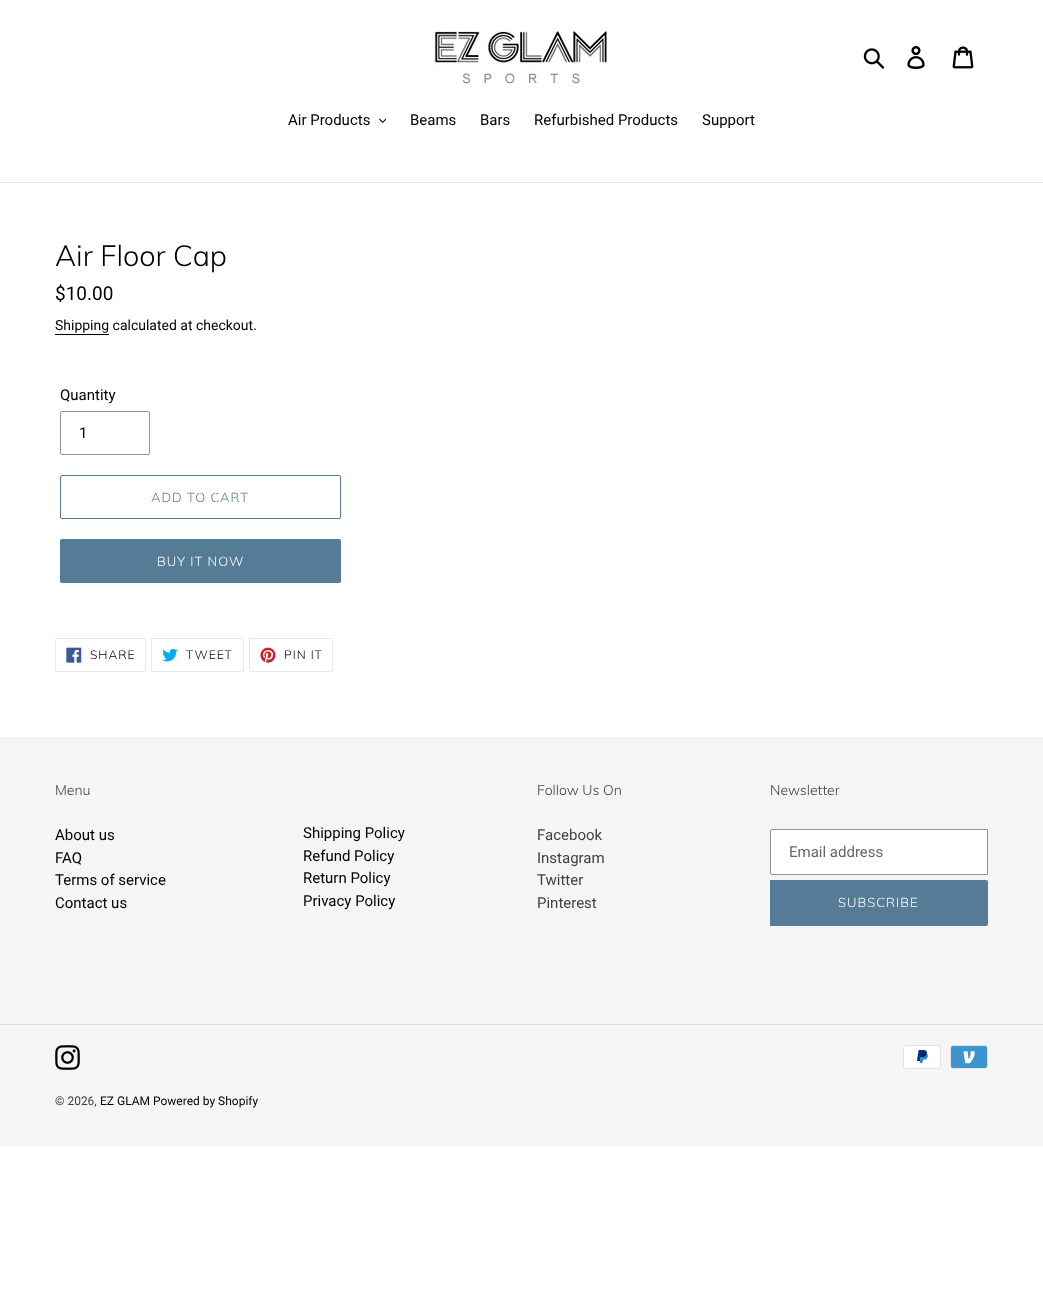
<!DOCTYPE html>
<meta charset="utf-8">
<style>body { margin: 0 } canvas { display: block }</style>
<canvas id="canvas" width="1043" height="1308"></canvas>
<img id="img1" src="images/1.png" hidden>
<img id="img2" src="images/2.png" hidden>
<img id="img3" src="images/3.png" hidden>
<img id="img4" src="images/4.png" hidden>
<img id="img5" src="images/5.png" hidden>
<img id="img6" src="images/6.png" hidden>
<img id="img7" src="images/7.png" hidden>
<img id="img8" src="images/8.png" hidden>
<img id="img9" src="images/9.png" hidden>
<img id="img10" src="images/10.png" hidden>
<img id="img11" src="images/11.png" hidden>
<script>
window.onload = function () {
    const canvas = document.getElementById('canvas');
    const context = canvas.getContext('2d');
    context.miterLimit = 4;
    context.fontKerning = 'normal';

    context.fillStyle = 'rgb(255, 255, 255)';
    context.fillRect(0, 0, 1043, 1308);
    context.drawImage(document.getElementById('img1'), 432, 30, 175, 54);
    context.drawImage(document.getElementById('img2'), 863, 48, 22, 21);
    context.drawImage(document.getElementById('img3'), 907, 46, 18, 23);
    context.drawImage(document.getElementById('img4'), 952, 46, 22, 23);
    context.fillStyle = 'rgb(232, 233, 235)';
    context.fillRect(0, 182, 1043, 1);
    context.drawImage(document.getElementById('img5'), 379, 118, 7, 5);
    context.fillStyle = 'rgb(0, 0, 0)';
    context.fillRect(55, 334, 54, 1);
    context.beginPath();
    context.roundRect(60.5, 411.5, 89, 43, 1.5);
    context.strokeStyle = 'rgb(148, 148, 148)';
    context.stroke();
    context.beginPath();
    context.roundRect(60.5, 475.5, 280, 43, 1.5);
    context.strokeStyle = 'rgb(85, 123, 151)';
    context.stroke();
    context.fillStyle = 'rgb(85, 123, 151)';
    context.beginPath();
    context.roundRect(60, 539, 281, 44, 2);
    context.fill();
    context.beginPath();
    context.roundRect(55.5, 638.5, 90, 33, 1.5);
    context.strokeStyle = 'rgb(232, 233, 235)';
    context.stroke();
    context.drawImage(document.getElementById('img6'), 66, 647, 16, 16);
    context.beginPath();
    context.roundRect(151.5, 638.5, 92, 33, 1.5);
    context.stroke();
    context.drawImage(document.getElementById('img7'), 162, 648, 16, 14);
    context.beginPath();
    context.roundRect(249.5, 638.5, 83, 33, 1.5);
    context.stroke();
    context.drawImage(document.getElementById('img8'), 260, 647, 16, 16);
    context.fillStyle = 'rgb(245, 245, 245)';
    context.fillRect(0, 737, 1043, 409);
    context.fillStyle = 'rgb(255, 255, 255)';
    context.beginPath();
    context.roundRect(770.5, 829.5, 217, 45, [1.5, 0, 0, 1.5]);
    context.fill();
    context.strokeStyle = 'rgb(148, 148, 148)';
    context.stroke();
    context.fillStyle = 'rgb(85, 123, 151)';
    context.beginPath();
    context.roundRect(770, 880, 218, 46, [0, 2, 2, 0]);
    context.fill();
    context.fillStyle = 'rgb(220, 220, 220)';
    context.fillRect(0, 1024, 1043, 1);
    context.drawImage(document.getElementById('img9'), 55, 1045, 25, 25);
    context.drawImage(document.getElementById('img10'), 903, 1045, 38, 24);
    context.drawImage(document.getElementById('img11'), 950, 1045, 38, 24);
    context.font = '15px Roboto';
    context.fillStyle = 'rgb(0, 0, 0)';
    context.fillText('Air Products', 288, 125);
    context.fillText('Beams', 410, 125);
    context.fillText('Bars', 480, 125);
    context.fillText('Refurbished Products', 534, 125);
    context.fillText('Support', 702, 125);
    context.font = '300 29px Muli';
    context.fillText('Air Floor Cap', 55, 266);
    context.font = '19px Roboto';
    context.fillText('$10.00', 55, 300);
    context.font = '14px Roboto';
    context.fillText('Shipping calculated at checkout.', 55, 330);
    context.font = '15px Roboto';
    context.fillText('Quantity', 60, 400);
    context.fillText('1', 79, 438);
    context.letterSpacing = '1px';
    context.font = '300 13px Muli';
    context.fillStyle = 'rgb(85, 123, 151)';
    context.fillText('ADD TO CART', 151, 502);
    context.fillStyle = 'rgb(255, 255, 255)';
    context.fillText('BUY IT NOW', 157, 566);
    context.font = '300 12px Muli';
    context.fillStyle = 'rgb(0, 0, 0)';
    context.fillText('SHARE', 90, 659);
    context.fillText('TWEET', 186, 659);
    context.fillText('PIN IT', 284, 659);
    context.letterSpacing = '0px';
    context.font = '300 14px Muli';
    context.fillStyle = 'rgb(61, 66, 70)';
    context.fillText('Menu', 55, 795);
    context.font = '15px Roboto';
    context.fillStyle = 'rgb(0, 0, 0)';
    context.fillText('About us', 55, 840);
    context.fillText('FAQ', 55, 863);
    context.fillText('Terms of service', 55, 885);
    context.fillText('Contact us', 55, 908);
    context.fillText('Shipping Policy', 303, 838);
    context.fillText('Refund Policy', 303, 861);
    context.fillText('Return Policy', 303, 883);
    context.fillText('Privacy Policy', 303, 906);
    context.font = '300 14px Muli';
    context.fillStyle = 'rgb(61, 66, 70)';
    context.fillText('Follow Us On', 537, 795);
    context.font = '15px Roboto';
    context.fillText('Facebook', 537, 840);
    context.fillText('Instagram', 537, 863);
    context.fillText('Twitter', 537, 885);
    context.fillText('Pinterest', 537, 908);
    context.font = '300 14px Muli';
    context.fillText('Newsletter', 770, 795);
    context.font = '15px Roboto';
    context.fillStyle = 'rgb(102, 102, 102)';
    context.fillText('Email address', 789, 857);
    context.letterSpacing = '1px';
    context.font = '300 13px Muli';
    context.fillStyle = 'rgb(255, 255, 255)';
    context.fillText('SUBSCRIBE', 838, 907);
    context.letterSpacing = '0px';
    context.font = '12px Roboto';
    context.fillStyle = 'rgb(61, 66, 70)';
    context.fillText('© 2026,', 55, 1105);
    context.fillStyle = 'rgb(0, 0, 0)';
    context.fillText('EZ GLAM', 100, 1105);
    context.fillText('Powered by Shopify', 153, 1105);
};
</script>
